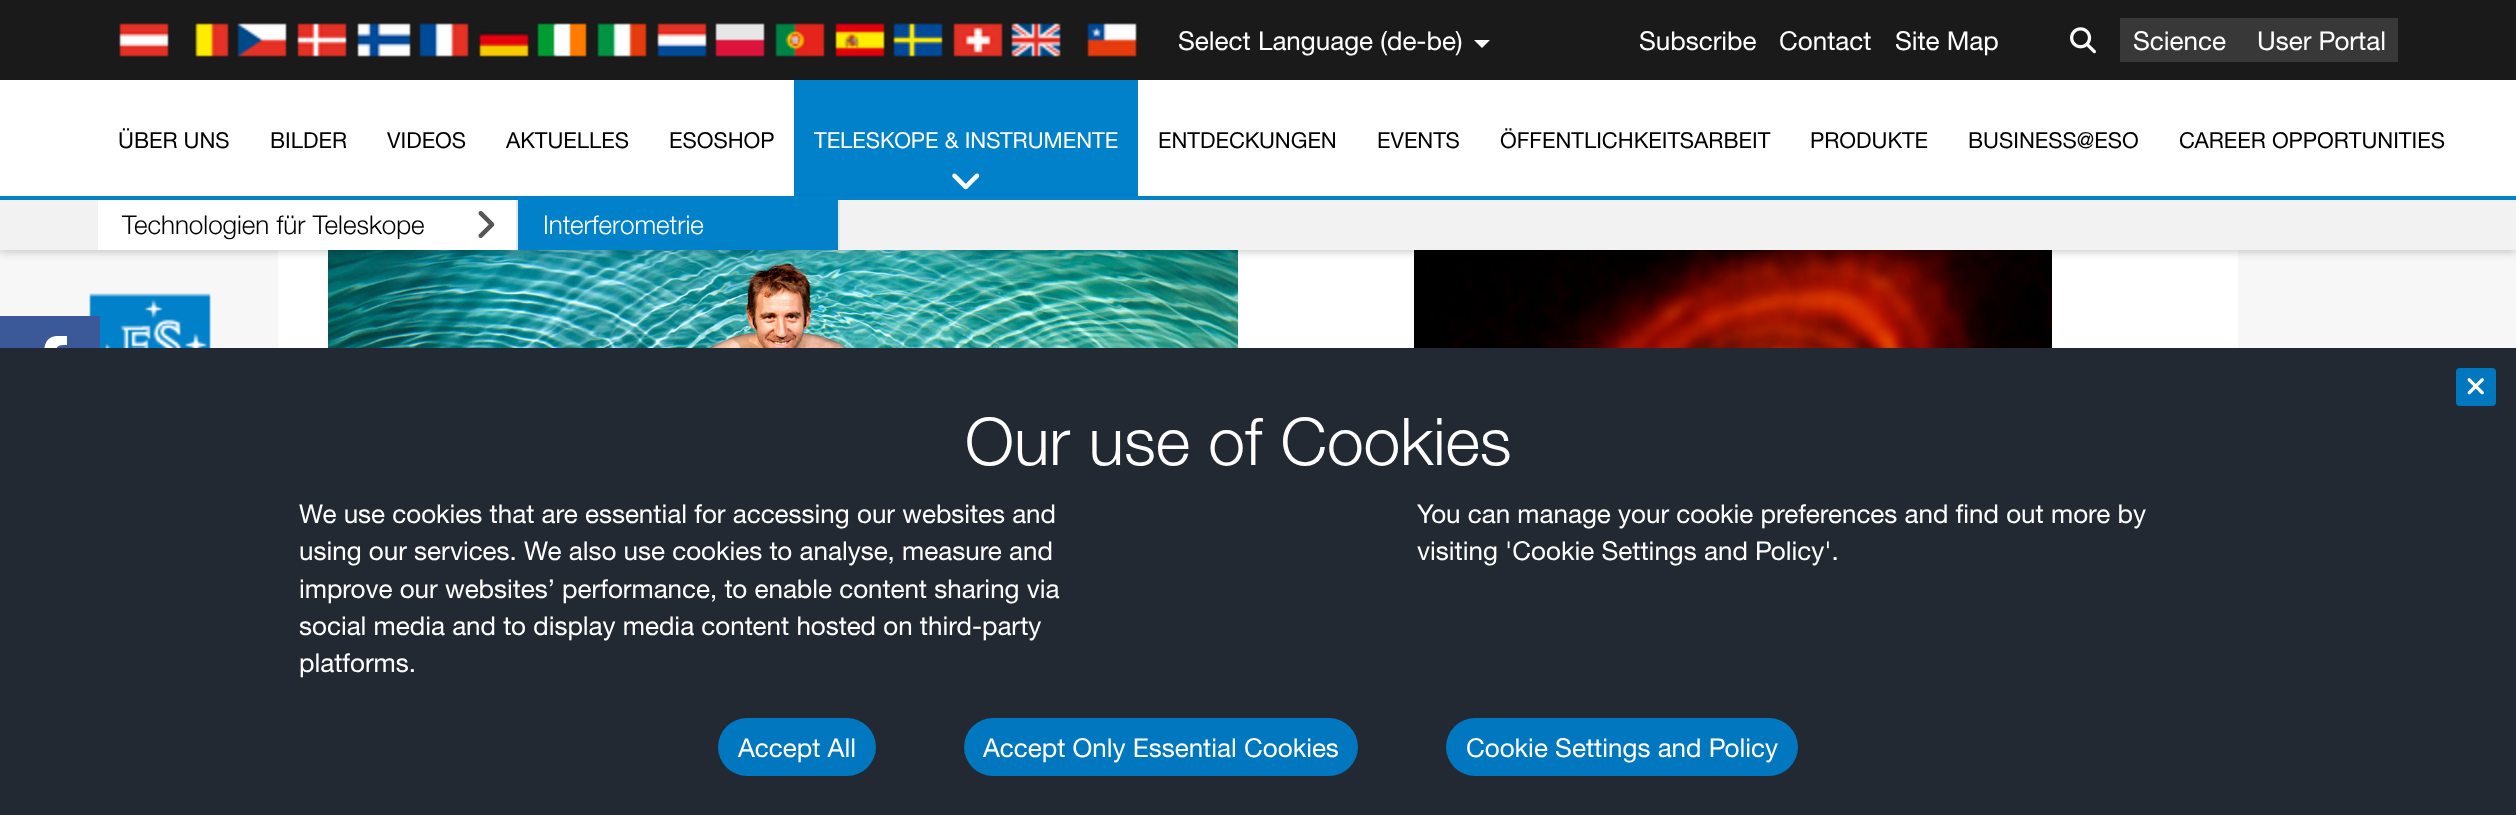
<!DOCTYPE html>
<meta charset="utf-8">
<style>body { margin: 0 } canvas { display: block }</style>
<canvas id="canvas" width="2516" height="815"></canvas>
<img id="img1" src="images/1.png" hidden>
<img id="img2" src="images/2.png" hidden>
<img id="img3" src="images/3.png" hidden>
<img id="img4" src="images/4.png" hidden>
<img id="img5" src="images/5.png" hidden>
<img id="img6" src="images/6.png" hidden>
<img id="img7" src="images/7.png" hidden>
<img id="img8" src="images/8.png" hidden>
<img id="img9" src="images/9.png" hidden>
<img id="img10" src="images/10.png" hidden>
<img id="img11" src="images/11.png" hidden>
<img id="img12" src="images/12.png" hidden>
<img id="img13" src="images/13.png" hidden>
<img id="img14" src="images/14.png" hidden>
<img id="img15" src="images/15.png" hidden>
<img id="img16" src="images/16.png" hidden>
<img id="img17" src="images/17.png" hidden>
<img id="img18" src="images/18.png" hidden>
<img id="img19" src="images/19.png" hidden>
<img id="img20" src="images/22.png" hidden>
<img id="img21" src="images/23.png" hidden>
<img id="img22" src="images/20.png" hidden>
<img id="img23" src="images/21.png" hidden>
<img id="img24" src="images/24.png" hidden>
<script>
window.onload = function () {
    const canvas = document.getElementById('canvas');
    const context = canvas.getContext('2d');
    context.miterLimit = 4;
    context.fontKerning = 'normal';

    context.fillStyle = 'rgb(247, 247, 247)';
    context.fillRect(0, 0, 2516, 815);
    context.fillStyle = 'rgb(26, 26, 26)';
    context.fillRect(0, 0, 2516, 80);
    context.drawImage(document.getElementById('img1'), 119, 23, 50, 34);
    context.drawImage(document.getElementById('img2'), 195, 23, 34, 34);
    context.drawImage(document.getElementById('img3'), 237, 23, 50, 34);
    context.drawImage(document.getElementById('img4'), 297, 23, 50, 34);
    context.drawImage(document.getElementById('img5'), 357, 23, 54, 34);
    context.drawImage(document.getElementById('img6'), 419, 23, 50, 34);
    context.drawImage(document.getElementById('img7'), 479, 31, 50, 26);
    context.drawImage(document.getElementById('img8'), 537, 23, 50, 34);
    context.drawImage(document.getElementById('img9'), 597, 23, 50, 34);
    context.drawImage(document.getElementById('img10'), 657, 23, 50, 34);
    context.drawImage(document.getElementById('img11'), 715, 23, 50, 34);
    context.drawImage(document.getElementById('img12'), 775, 23, 50, 34);
    context.drawImage(document.getElementById('img13'), 835, 23, 50, 34);
    context.drawImage(document.getElementById('img14'), 893, 23, 50, 34);
    context.drawImage(document.getElementById('img15'), 953, 23, 50, 34);
    context.drawImage(document.getElementById('img16'), 1011, 23, 50, 34);
    context.drawImage(document.getElementById('img17'), 1087, 23, 50, 34);
    context.fillStyle = 'rgb(255, 255, 255)';
    context.beginPath();
    context.moveTo(1474, 40);
    context.lineTo(1490, 40);
    context.lineTo(1482, 48);
    context.closePath();
    context.fill();
    context.drawImage(document.getElementById('img18'), 2070, 27, 26, 27);
    context.fillStyle = 'rgb(56, 56, 56)';
    context.fillRect(2120, 18, 278, 44);
    context.fillStyle = 'rgb(255, 255, 255)';
    context.fillRect(0, 80, 2516, 116);
    context.fillStyle = 'rgb(0, 129, 201)';
    context.fillRect(794, 80, 344, 116);
    context.drawImage(document.getElementById('img19'), 952, 173, 28, 17);
    context.fillStyle = 'rgb(255, 255, 255)';
    context.fillRect(278, 250, 1960, 98);
    context.drawImage(document.getElementById('img20'), 328, 250, 910, 98);
    context.drawImage(document.getElementById('img21'), 1414, 250, 638, 98);
    context.fillStyle = 'rgba(0, 0, 0, 0.2)';
    context.filter = 'blur(4px)';
    context.beginPath();
    context.rect(0, 202, 2516, 50);
    context.fill();
    context.filter = 'none';
    context.fillStyle = 'rgb(0, 129, 201)';
    context.fillRect(0, 196, 2516, 4);
    context.fillStyle = 'rgb(242, 242, 242)';
    context.fillRect(0, 200, 2516, 50);
    context.fillStyle = 'rgb(231, 231, 231)';
    context.fillRect(516, 200, 2, 50);
    context.fillStyle = 'rgb(255, 255, 255)';
    context.fillRect(98, 200, 418, 50);
    context.drawImage(document.getElementById('img22'), 478, 211, 17, 27);
    context.fillStyle = 'rgb(231, 231, 231)';
    context.fillRect(838, 200, 2, 50);
    context.fillStyle = 'rgb(0, 129, 201)';
    context.fillRect(518, 200, 320, 50);
    context.drawImage(document.getElementById('img23'), 89, 293, 122, 55);
    context.fillStyle = 'rgb(59, 89, 152)';
    context.fillRect(0, 316, 100, 32);
    context.fillStyle = 'rgb(255, 255, 255)';
    context.beginPath();
    context.moveTo(65, 369);
    context.lineTo(66, 358);
    context.lineTo(56, 358);
    context.bezierCurveTo(56, 347, 55, 345, 67, 345);
    context.lineTo(67, 336);
    context.lineTo(57, 336);
    context.bezierCurveTo(44, 337, 44, 348, 44, 358);
    context.lineTo(35, 358);
    context.lineTo(35, 369);
    context.lineTo(44, 369);
    context.lineTo(44, 396);
    context.lineTo(56, 396);
    context.lineTo(56, 369);
    context.closePath();
    context.fill();
    context.fillStyle = 'rgb(35, 41, 50)';
    context.fillRect(0, 348, 2516, 467);
    context.fillStyle = 'rgb(0, 119, 190)';
    context.beginPath();
    context.roundRect(2456, 368, 40, 38, 4);
    context.fill();
    context.drawImage(document.getElementById('img24'), 2467, 378, 17, 17);
    context.beginPath();
    context.roundRect(718, 718, 158, 58, 29);
    context.fill();
    context.beginPath();
    context.roundRect(964, 718, 394, 58, 29);
    context.fill();
    context.beginPath();
    context.roundRect(1446, 718, 352, 58, 29);
    context.fill();
    context.font = '26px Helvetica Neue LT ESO';
    context.fillStyle = 'rgb(255, 255, 255)';
    context.fillText('Select Language (de-be)', 1178, 50);
    context.fillText('Subscribe', 1639, 50);
    context.fillText('Contact', 1779, 50);
    context.fillText('Site Map', 1895, 50);
    context.fillText('Science', 2133, 50);
    context.fillText('User Portal', 2257, 50);
    context.font = '22px Helvetica Neue LT ESO';
    context.fillStyle = 'rgb(0, 0, 0)';
    context.fillText('ÜBER UNS', 118, 148);
    context.fillText('ÖFFENTLICHKEITSARBEIT', 1500, 148);
    context.fillStyle = 'rgb(255, 255, 255)';
    context.fillText('TELESKOPE & INSTRUMENTE', 814, 148);
    context.font = '300 26px Helvetica Neue LT ESO';
    context.fillStyle = 'rgb(0, 0, 0)';
    context.fillText('Technologien für Teleskope', 122, 234);
    context.fillStyle = 'rgb(255, 255, 255)';
    context.fillText('Interferometrie', 543, 234);
    context.font = '22px Helvetica Neue LT ESO';
    context.fillStyle = 'rgb(0, 0, 0)';
    context.fillText('BILDER', 270, 148);
    context.fillText('VIDEOS', 387, 148);
    context.fillText('AKTUELLES', 506, 148);
    context.fillText('ESOSHOP', 669, 148);
    context.fillText('ENTDECKUNGEN', 1158, 148);
    context.fillText('EVENTS', 1377, 148);
    context.fillText('PRODUKTE', 1810, 148);
    context.fillText('BUSINESS@ESO', 1968, 148);
    context.fillText('CAREER OPPORTUNITIES', 2179, 148);
    context.font = '300 66px Helvetica Neue LT ESO';
    context.fillStyle = 'rgb(255, 255, 255)';
    context.fillText('Our use of Cookies', 965, 465);
    context.font = '26px Helvetica Neue LT ESO';
    context.fillText('We use cookies that are essential for accessing our websites and', 299, 523);
    context.fillText('using our services. We also use cookies to analyse, measure and', 299, 560);
    context.fillText('improve our websites’ performance, to enable content sharing via', 299, 598);
    context.fillText('social media and to display media content hosted on third-party', 299, 635);
    context.fillText('platforms.', 299, 672);
    context.fillText('You can manage your cookie preferences and find out more by', 1417, 523);
    context.fillText('visiting \'Cookie Settings and Policy\'.', 1417, 560);
    context.fillText('Accept All', 738, 757);
    context.fillText('Accept Only Essential Cookies', 983, 757);
    context.fillText('Cookie Settings and Policy', 1466, 757);
};
</script>
